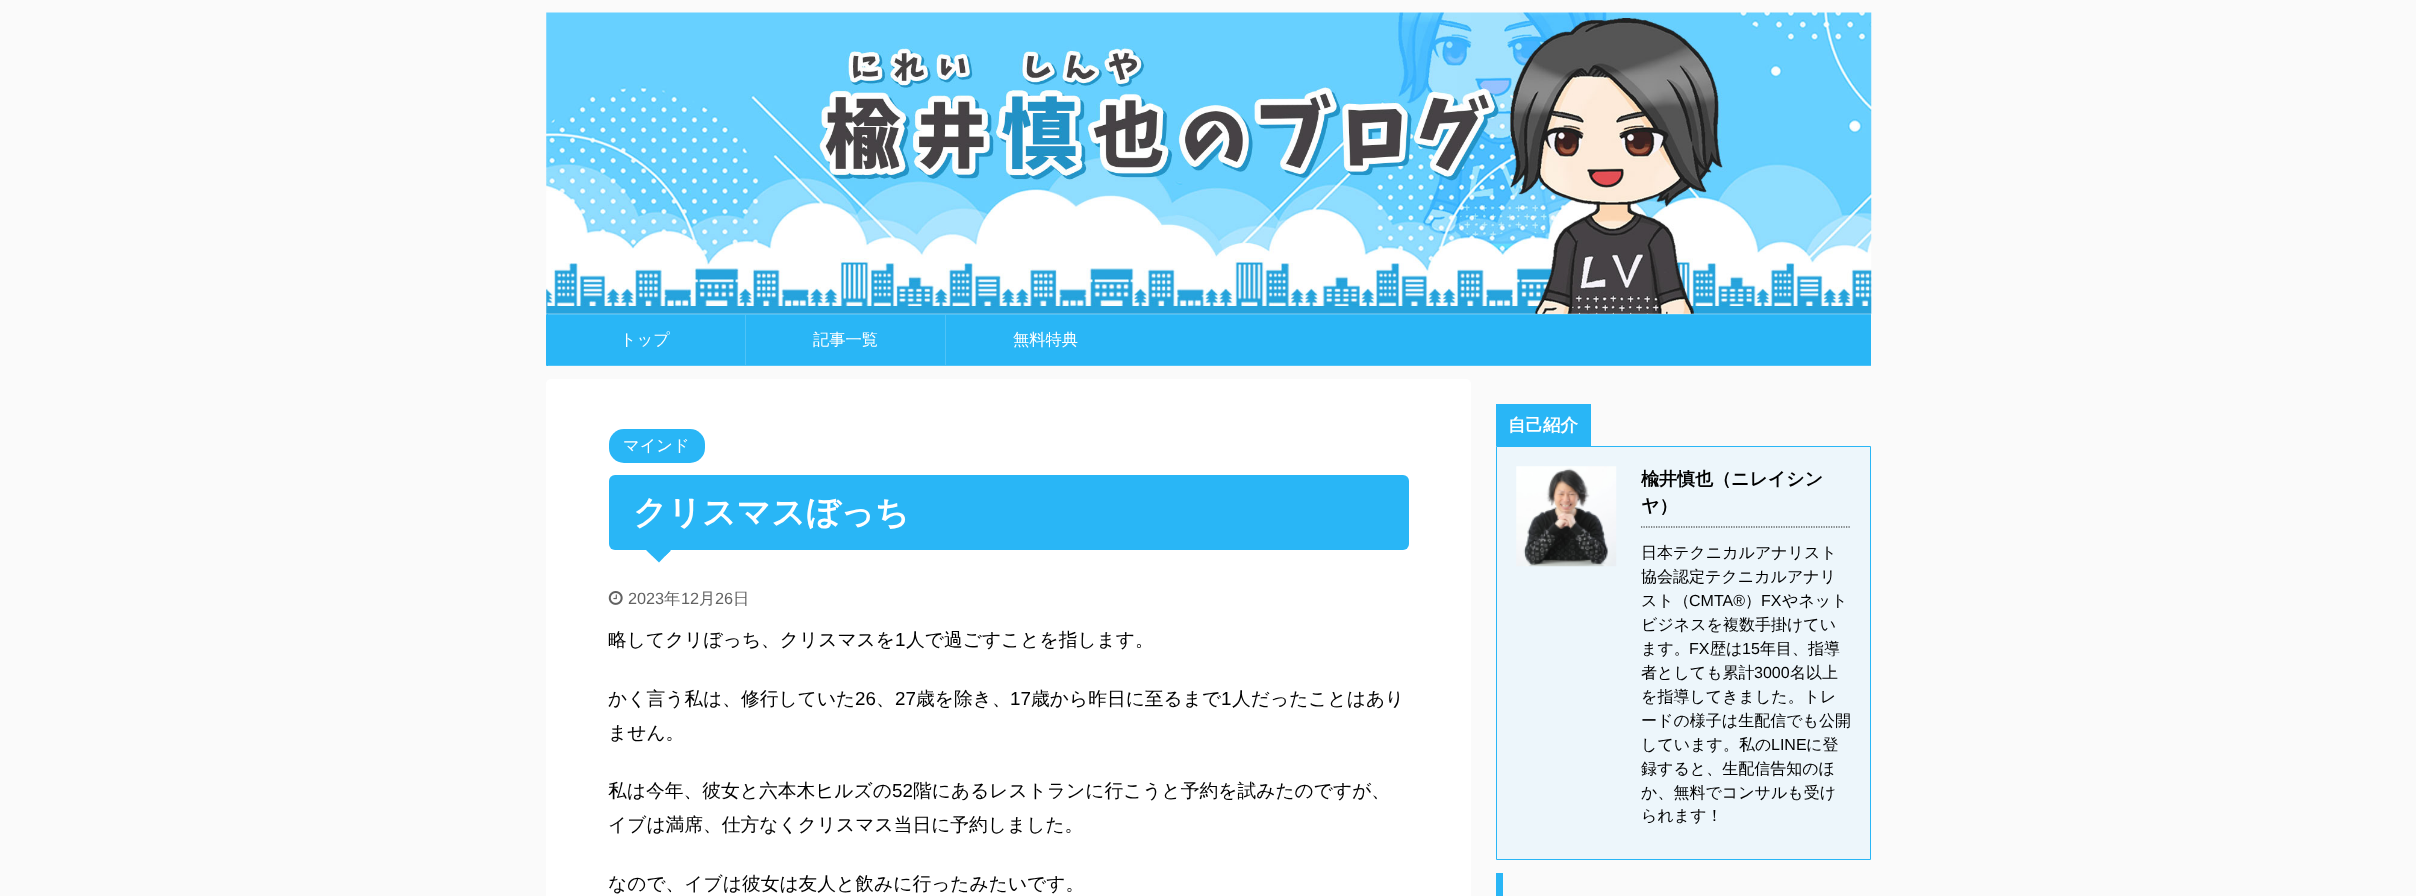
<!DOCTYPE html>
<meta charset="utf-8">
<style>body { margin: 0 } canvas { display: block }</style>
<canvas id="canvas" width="2416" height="896"></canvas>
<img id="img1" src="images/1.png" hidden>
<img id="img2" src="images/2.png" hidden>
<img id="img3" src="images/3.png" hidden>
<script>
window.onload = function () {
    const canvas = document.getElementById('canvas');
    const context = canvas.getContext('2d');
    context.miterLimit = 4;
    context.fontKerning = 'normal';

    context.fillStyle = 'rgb(250, 250, 250)';
    context.fillRect(0, 0, 2416, 896);
    context.drawImage(document.getElementById('img1'), 546, 12, 1326, 302);
    context.fillStyle = 'rgb(41, 182, 246)';
    context.beginPath();
    context.roundRect(546, 314, 1325, 52, 1);
    context.fill();
    context.fillStyle = 'rgb(79, 195, 247)';
    context.fillRect(548, 314, 1323, 1);
    context.fillRect(548, 365, 1323, 1);
    context.fillRect(745, 315, 1, 50);
    context.fillRect(945, 315, 1, 50);
    context.fillStyle = 'rgb(255, 255, 255)';
    context.beginPath();
    context.roundRect(546, 379, 925, 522, 5);
    context.fill();
    context.fillStyle = 'rgb(41, 182, 246)';
    context.beginPath();
    context.roundRect(609, 429, 96, 34, 15);
    context.fill();
    context.beginPath();
    context.roundRect(609, 475, 800, 75, 6);
    context.fill();
    context.beginPath();
    context.moveTo(646, 550);
    context.lineTo(671, 550);
    context.lineTo(659, 562.5);
    context.closePath();
    context.fill();
    context.beginPath();
    context.moveTo(649, 550);
    context.lineTo(647, 550.5);
    context.lineTo(652.5, 556);
    context.lineTo(665, 556);
    context.lineTo(670.5, 551);
    context.lineTo(669, 550);
    context.closePath();
    context.fill();
    context.drawImage(document.getElementById('img2'), 608, 591, 15, 14);
    context.fillRect(1496, 404, 95, 42);
    context.fillStyle = 'rgb(237, 246, 251)';
    context.beginPath();
    context.rect(1496.5, 446.5, 374, 413);
    context.fill();
    context.strokeStyle = 'rgb(41, 182, 246)';
    context.stroke();
    context.drawImage(document.getElementById('img3'), 1516, 466, 101, 101);
    context.beginPath();
    context.moveTo(1641, 527);
    context.lineTo(1851, 527);
    context.strokeStyle = 'rgb(26, 26, 26)';
    context.lineWidth = 1.2;
    context.setLineDash([1.25, 1.25]);
    context.stroke();
    context.fillStyle = 'rgb(41, 182, 246)';
    context.fillRect(1496, 873, 7, 23);
    context.font = '500 16.25px WenQuanYi Zen Hei';
    context.fillStyle = 'rgb(255, 255, 255)';
    context.fillText('トップ', 620, 345);
    context.fillText('記事一覧', 813, 345);
    context.fillText('無料特典', 1013, 345);
    context.fillText('マインド', 623, 451);
    context.font = 'bold 33.75px WenQuanYi Zen Hei';
    context.fillText('クリスマスぼっち', 633, 524);
    context.font = '16.25px Liberation Sans';
    context.fillStyle = 'rgb(97, 97, 97)';
    context.fillText('2023', 628, 604);
    context.font = '500 16.25px WenQuanYi Zen Hei';
    context.fillText('年', 664, 604);
    context.font = '16.25px Liberation Sans';
    context.fillText('12', 681, 604);
    context.font = '500 16.25px WenQuanYi Zen Hei';
    context.fillText('月', 699, 604);
    context.font = '16.25px Liberation Sans';
    context.fillText('26', 715, 604);
    context.font = '500 16.25px WenQuanYi Zen Hei';
    context.fillText('日', 733, 604);
    context.font = '500 18.75px WenQuanYi Zen Hei';
    context.fillStyle = 'rgb(0, 0, 0)';
    context.fillText('略してクリぼっち、クリスマスを', 608, 646);
    context.font = '18.75px Liberation Sans';
    context.fillText('1', 895, 646);
    context.font = '500 18.75px WenQuanYi Zen Hei';
    context.fillText('人で過ごすことを指します。', 906, 646);
    context.fillText('かく言う私は、修行していた', 608, 705);
    context.font = '18.75px Liberation Sans';
    context.fillText('26', 855, 705);
    context.fillText('27', 895, 705);
    context.font = '500 18.75px WenQuanYi Zen Hei';
    context.fillText('歳を除き、', 916, 705);
    context.font = '18.75px Liberation Sans';
    context.fillText('17', 1010, 705);
    context.font = '500 18.75px WenQuanYi Zen Hei';
    context.fillText('歳から昨日に至るまで', 1031, 705);
    context.font = '18.75px Liberation Sans';
    context.fillText('1', 1221, 705);
    context.font = '500 18.75px WenQuanYi Zen Hei';
    context.fillText('人だったことはあり', 1232, 705);
    context.fillText('、', 876, 705);
    context.fillText('ません。', 608, 739);
    context.fillText('私は今年、彼女と六本木ヒルズの', 608, 797);
    context.font = '18.75px Liberation Sans';
    context.fillText('52', 892, 797);
    context.font = '500 18.75px WenQuanYi Zen Hei';
    context.fillText('階にあるレストランに行こうと予約を試みたのですが、', 913, 797);
    context.fillText('イブは満席、仕方なくクリスマス当日に予約しました。', 608, 831);
    context.fillText('なので、イブは彼女は友人と飲みに行ったみたいです。', 608, 890);
    context.font = 'bold 17.5px WenQuanYi Zen Hei';
    context.fillStyle = 'rgb(255, 255, 255)';
    context.fillText('自己紹介', 1508, 431);
    context.font = 'bold 18px WenQuanYi Zen Hei';
    context.fillStyle = 'rgb(0, 0, 0)';
    context.fillText('楡井慎也（ニレイシン', 1641, 485);
    context.fillText('ヤ）', 1641, 512);
    context.font = '500 16px WenQuanYi Zen Hei';
    context.fillText('日本テクニカルアナリスト', 1641, 558);
    context.fillText('協会認定テクニカルアナリ', 1641, 582);
    context.fillText('スト（', 1641, 606);
    context.font = '16px Liberation Sans';
    context.fillText('CMTA®︎', 1689, 606);
    context.font = '500 16px WenQuanYi Zen Hei';
    context.fillText('）', 1745, 606);
    context.font = '16px Liberation Sans';
    context.fillText('FX', 1761, 606);
    context.font = '500 16px WenQuanYi Zen Hei';
    context.fillText('やネット', 1782, 606);
    context.fillText('ビジネスを複数手掛けてい', 1641, 630);
    context.fillText('ます。', 1641, 654);
    context.font = '16px Liberation Sans';
    context.fillText('FX', 1689, 654);
    context.font = '500 16px WenQuanYi Zen Hei';
    context.fillText('歴は', 1710, 654);
    context.font = '16px Liberation Sans';
    context.fillText('15', 1742, 654);
    context.font = '500 16px WenQuanYi Zen Hei';
    context.fillText('年目、指導', 1760, 654);
    context.fillText('者としても累計', 1641, 678);
    context.font = '16px Liberation Sans';
    context.fillText('3000', 1754, 678);
    context.font = '500 16px WenQuanYi Zen Hei';
    context.fillText('名以上', 1790, 678);
    context.fillText('を指導してきました。トレ', 1641, 702);
    context.fillText('ードの様子は生配信でも公開', 1641, 726);
    context.fillText('しています。私の', 1641, 750);
    context.font = '16px Liberation Sans';
    context.fillText('LINE', 1771, 750);
    context.font = '500 16px WenQuanYi Zen Hei';
    context.fillText('に登', 1806, 750);
    context.fillText('録すると、生配信告知のほ', 1641, 774);
    context.fillText('か、無料でコンサルも受け', 1641, 798);
    context.fillText('られます！', 1641, 821);
};
</script>
